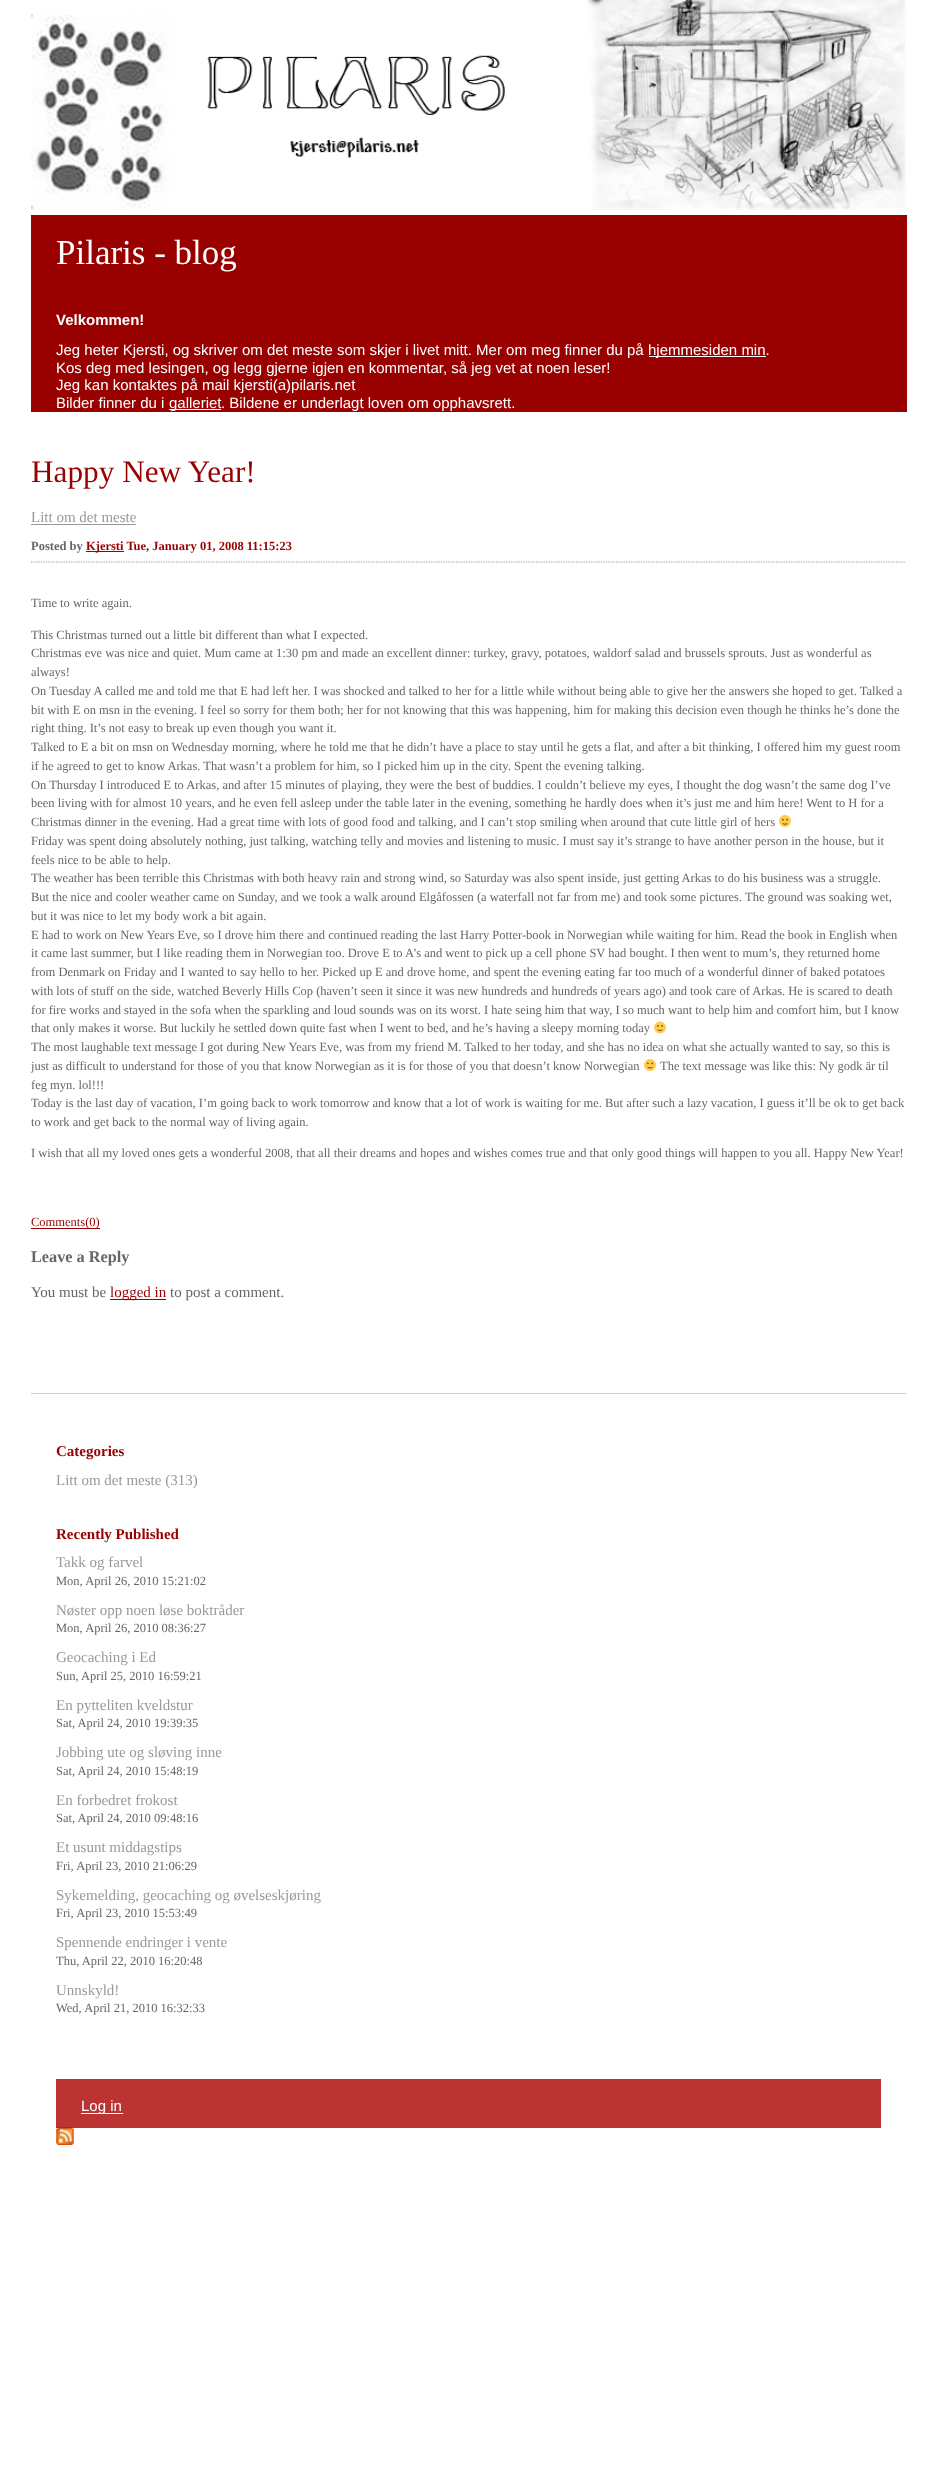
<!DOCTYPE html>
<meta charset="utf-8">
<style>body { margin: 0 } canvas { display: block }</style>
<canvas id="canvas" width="937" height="2466"></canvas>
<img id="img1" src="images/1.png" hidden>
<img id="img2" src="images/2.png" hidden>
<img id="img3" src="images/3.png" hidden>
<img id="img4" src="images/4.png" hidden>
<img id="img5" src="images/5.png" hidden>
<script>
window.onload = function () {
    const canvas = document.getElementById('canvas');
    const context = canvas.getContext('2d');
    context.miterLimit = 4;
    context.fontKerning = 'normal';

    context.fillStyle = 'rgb(255, 255, 255)';
    context.fillRect(0, 0, 937, 2466);
    context.drawImage(document.getElementById('img1'), 31, 0, 875, 210);
    context.fillStyle = 'rgb(153, 0, 0)';
    context.fillRect(31, 215, 876, 197);
    context.fillStyle = 'rgb(255, 255, 255)';
    context.fillRect(649, 356, 117, 1);
    context.fillRect(169, 409, 52, 1);
    context.fillStyle = 'rgb(153, 153, 153)';
    context.fillRect(31, 524, 105, 1);
    context.beginPath();
    context.moveTo(31, 562);
    context.lineTo(906, 562);
    context.strokeStyle = 'rgb(153, 153, 153)';
    context.lineWidth = 1.2;
    context.setLineDash([1.25, 1.25]);
    context.stroke();
    context.fillStyle = 'rgb(153, 0, 0)';
    context.fillRect(86, 551, 38, 1);
    context.drawImage(document.getElementById('img2'), 779, 815, 12, 12);
    context.drawImage(document.getElementById('img3'), 654, 1021, 12, 13);
    context.drawImage(document.getElementById('img4'), 644, 1059, 12, 12);
    context.fillRect(31, 1228, 69, 1);
    context.fillRect(110, 1299, 56, 1);
    context.fillStyle = 'rgb(204, 204, 204)';
    context.fillRect(31, 1393, 875, 1);
    context.drawImage(document.getElementById('img5'), 56, 2127, 18, 18);
    context.fillStyle = 'rgba(170, 0, 0, 0.8)';
    context.fillRect(56, 2079, 825, 49);
    context.fillStyle = 'rgb(255, 255, 255)';
    context.fillRect(81, 2113, 42, 1);
    context.font = '35px Liberation Serif';
    context.fillText('Pilaris - blog', 56, 264);
    context.font = 'bold 15px Liberation Sans';
    context.fillText('Velkommen!', 56, 325);
    context.font = '15px Liberation Sans';
    context.fillText('Jeg heter Kjersti, og skriver om det meste som skjer i livet mitt. Mer om meg finner du på', 56, 355);
    context.fillText('hjemmesiden min.', 648, 355);
    context.fillText('Kos deg med lesingen, og legg gjerne igjen en kommentar, så jeg vet at noen leser!', 56, 373);
    context.fillText('Jeg kan kontaktes på mail kjersti(a)pilaris.net', 56, 390);
    context.fillText('Bilder finner du i', 56, 408);
    context.fillText('galleriet', 169, 408);
    context.save();
    context.beginPath();
    context.rect(31, 394, 875, 17);
    context.clip();
    context.fillText('. Bildene er underlagt loven om opphavsrett.', 221, 408);
    context.restore();
    context.font = '31.25px Liberation Serif';
    context.fillStyle = 'rgb(153, 0, 0)';
    context.fillText('Happy New Year!', 31, 482);
    context.font = '15px Liberation Serif';
    context.fillStyle = 'rgb(153, 153, 153)';
    context.fillText('Litt om det meste', 31, 522);
    context.font = 'bold 12.5px Liberation Serif';
    context.fillStyle = 'rgb(102, 102, 102)';
    context.fillText('Posted by', 31, 550);
    context.fillStyle = 'rgb(153, 0, 0)';
    context.fillText('Kjersti Tue, January 01, 2008 11:15:23', 86, 550);
    context.font = '12.5px Liberation Serif';
    context.fillStyle = 'rgb(102, 102, 102)';
    context.fillText('Time to write again.', 31, 607);
    context.fillText('This Christmas turned out a little bit different than what I expected.', 31, 639);
    context.fillText('Christmas eve was nice and quiet. Mum came at 1:30 pm and made an excellent dinner: turkey, gravy, potatoes, waldorf salad and brussels sprouts. Just as wonderful as', 31, 657);
    context.fillText('always!', 31, 676);
    context.fillText('On Tuesday A called me and told me that E had left her. I was shocked and talked to her for a little while without being able to give her the answers she hoped to get. Talked a', 31, 695);
    context.fillText('bit with E on msn in the evening. I feel so sorry for them both; her for not knowing that this was happening, him for making this decision even though he thinks he’s done the', 31, 714);
    context.fillText('right thing. It’s not easy to break up even though you want it.', 31, 732);
    context.fillText('Talked to E a bit on msn on Wednesday morning, where he told me that he didn’t have a place to stay until he gets a flat, and after a bit thinking, I offered him my guest room', 31, 751);
    context.fillText('if he agreed to get to know Arkas. That wasn’t a problem for him, so I picked him up in the city. Spent the evening talking.', 31, 770);
    context.fillText('On Thursday I introduced E to Arkas, and after 15 minutes of playing, they were the best of buddies. I couldn’t believe my eyes, I thought the dog wasn’t the same dog I’ve', 31, 789);
    context.fillText('been living with for almost 10 years, and he even fell asleep under the table later in the evening, something he hardly does when it’s just me and him here! Went to H for a', 31, 807);
    context.fillText('Christmas dinner in the evening. Had a great time with lots of good food and talking, and I can’t stop smiling when around that cute little girl of hers', 31, 826);
    context.fillText('Friday was spent doing absolutely nothing, just talking, watching telly and movies and listening to music. I must say it’s strange to have another person in the house, but it', 31, 845);
    context.fillText('feels nice to be able to help.', 31, 864);
    context.fillText('The weather has been terrible this Christmas with both heavy rain and strong wind, so Saturday was also spent inside, just getting Arkas to do his business was a struggle.', 31, 882);
    context.fillText('But the nice and cooler weather came on Sunday, and we took a walk around Elgåfossen (a waterfall not far from me) and took some pictures. The ground was soaking wet,', 31, 901);
    context.fillText('but it was nice to let my body work a bit again.', 31, 920);
    context.fillText('E had to work on New Years Eve, so I drove him there and continued reading the last Harry Potter-book in Norwegian while waiting for him. Read the book in English when', 31, 939);
    context.fillText('it came last summer, but I like reading them in Norwegian too. Drove E to A’s and went to pick up a cell phone SV had bought. I then went to mum’s, they returned home', 31, 957);
    context.fillText('from Denmark on Friday and I wanted to say hello to her. Picked up E and drove home, and spent the evening eating far too much of a wonderful dinner of baked potatoes', 31, 976);
    context.fillText('with lots of stuff on the side, watched Beverly Hills Cop (haven’t seen it since it was new hundreds and hundreds of years ago) and took care of Arkas. He is scared to death', 31, 995);
    context.fillText('for fire works and stayed in the sofa when the sparkling and loud sounds was on its worst. I hate seing him that way, I so much want to help him and comfort him, but I know', 31, 1014);
    context.fillText('that only makes it worse. But luckily he settled down quite fast when I went to bed, and he’s having a sleepy morning today', 31, 1032);
    context.fillText('The most laughable text message I got during New Years Eve, was from my friend M. Talked to her today, and she has no idea on what she actually wanted to say, so this is', 31, 1051);
    context.fillText('just as difficult to understand for those of you that know Norwegian as it is for those of you that doesn’t know Norwegian', 31, 1070);
    context.fillText('The text message was like this: Ny godk är til', 660, 1070);
    context.fillText('feg myn. lol!!!', 31, 1089);
    context.fillText('Today is the last day of vacation, I’m going back to work tomorrow and know that a lot of work is waiting for me. But after such a lazy vacation, I guess it’ll be ok to get back', 31, 1107);
    context.fillText('to work and get back to the normal way of living again.', 31, 1126);
    context.fillText('I wish that all my loved ones gets a wonderful 2008, that all their dreams and hopes and wishes comes true and that only good things will happen to you all. Happy New Year!', 31, 1157);
    context.fillStyle = 'rgb(153, 0, 0)';
    context.fillText('Comments(0)', 31, 1226);
    context.font = 'bold 16.25px Liberation Serif';
    context.fillStyle = 'rgb(102, 102, 102)';
    context.fillText('Leave a Reply', 31, 1262);
    context.font = '15px Liberation Serif';
    context.fillText('You must be', 31, 1297);
    context.fillStyle = 'rgb(153, 0, 0)';
    context.fillText('logged in', 110, 1297);
    context.fillStyle = 'rgb(102, 102, 102)';
    context.fillText('to post a comment.', 170, 1297);
    context.font = 'bold 15px Liberation Serif';
    context.fillStyle = 'rgb(153, 0, 0)';
    context.fillText('Categories', 56, 1456);
    context.font = '15px Liberation Serif';
    context.fillStyle = 'rgb(153, 153, 153)';
    context.fillText('Litt om det meste (313)', 56, 1485);
    context.font = 'bold 15px Liberation Serif';
    context.fillStyle = 'rgb(153, 0, 0)';
    context.fillText('Recently Published', 56, 1539);
    context.font = '15px Liberation Serif';
    context.fillStyle = 'rgb(153, 153, 153)';
    context.fillText('Takk og farvel', 56, 1567);
    context.font = '12.5px Liberation Serif';
    context.fillStyle = 'rgb(102, 102, 102)';
    context.fillText('Mon, April 26, 2010 15:21:02', 56, 1585);
    context.font = '15px Liberation Serif';
    context.fillStyle = 'rgb(153, 153, 153)';
    context.fillText('Nøster opp noen løse boktråder', 56, 1615);
    context.font = '12.5px Liberation Serif';
    context.fillStyle = 'rgb(102, 102, 102)';
    context.fillText('Mon, April 26, 2010 08:36:27', 56, 1632);
    context.font = '15px Liberation Serif';
    context.fillStyle = 'rgb(153, 153, 153)';
    context.fillText('Geocaching i Ed', 56, 1662);
    context.font = '12.5px Liberation Serif';
    context.fillStyle = 'rgb(102, 102, 102)';
    context.fillText('Sun, April 25, 2010 16:59:21', 56, 1680);
    context.font = '15px Liberation Serif';
    context.fillStyle = 'rgb(153, 153, 153)';
    context.fillText('En pytteliten kveldstur', 56, 1710);
    context.font = '12.5px Liberation Serif';
    context.fillStyle = 'rgb(102, 102, 102)';
    context.fillText('Sat, April 24, 2010 19:39:35', 56, 1727);
    context.font = '15px Liberation Serif';
    context.fillStyle = 'rgb(153, 153, 153)';
    context.fillText('Jobbing ute og sløving inne', 56, 1757);
    context.font = '12.5px Liberation Serif';
    context.fillStyle = 'rgb(102, 102, 102)';
    context.fillText('Sat, April 24, 2010 15:48:19', 56, 1775);
    context.font = '15px Liberation Serif';
    context.fillStyle = 'rgb(153, 153, 153)';
    context.fillText('En forbedret frokost', 56, 1805);
    context.font = '12.5px Liberation Serif';
    context.fillStyle = 'rgb(102, 102, 102)';
    context.fillText('Sat, April 24, 2010 09:48:16', 56, 1822);
    context.font = '15px Liberation Serif';
    context.fillStyle = 'rgb(153, 153, 153)';
    context.fillText('Et usunt middagstips', 56, 1852);
    context.font = '12.5px Liberation Serif';
    context.fillStyle = 'rgb(102, 102, 102)';
    context.fillText('Fri, April 23, 2010 21:06:29', 56, 1870);
    context.font = '15px Liberation Serif';
    context.fillStyle = 'rgb(153, 153, 153)';
    context.fillText('Sykemelding, geocaching og øvelseskjøring', 56, 1900);
    context.font = '12.5px Liberation Serif';
    context.fillStyle = 'rgb(102, 102, 102)';
    context.fillText('Fri, April 23, 2010 15:53:49', 56, 1917);
    context.font = '15px Liberation Serif';
    context.fillStyle = 'rgb(153, 153, 153)';
    context.fillText('Spennende endringer i vente', 56, 1947);
    context.font = '12.5px Liberation Serif';
    context.fillStyle = 'rgb(102, 102, 102)';
    context.fillText('Thu, April 22, 2010 16:20:48', 56, 1965);
    context.font = '15px Liberation Serif';
    context.fillStyle = 'rgb(153, 153, 153)';
    context.fillText('Unnskyld!', 56, 1995);
    context.font = '12.5px Liberation Serif';
    context.fillStyle = 'rgb(102, 102, 102)';
    context.fillText('Wed, April 21, 2010 16:32:33', 56, 2012);
    context.font = '15px Liberation Sans';
    context.fillStyle = 'rgb(255, 255, 255)';
    context.fillText('Log in', 81, 2111);
};
</script>
